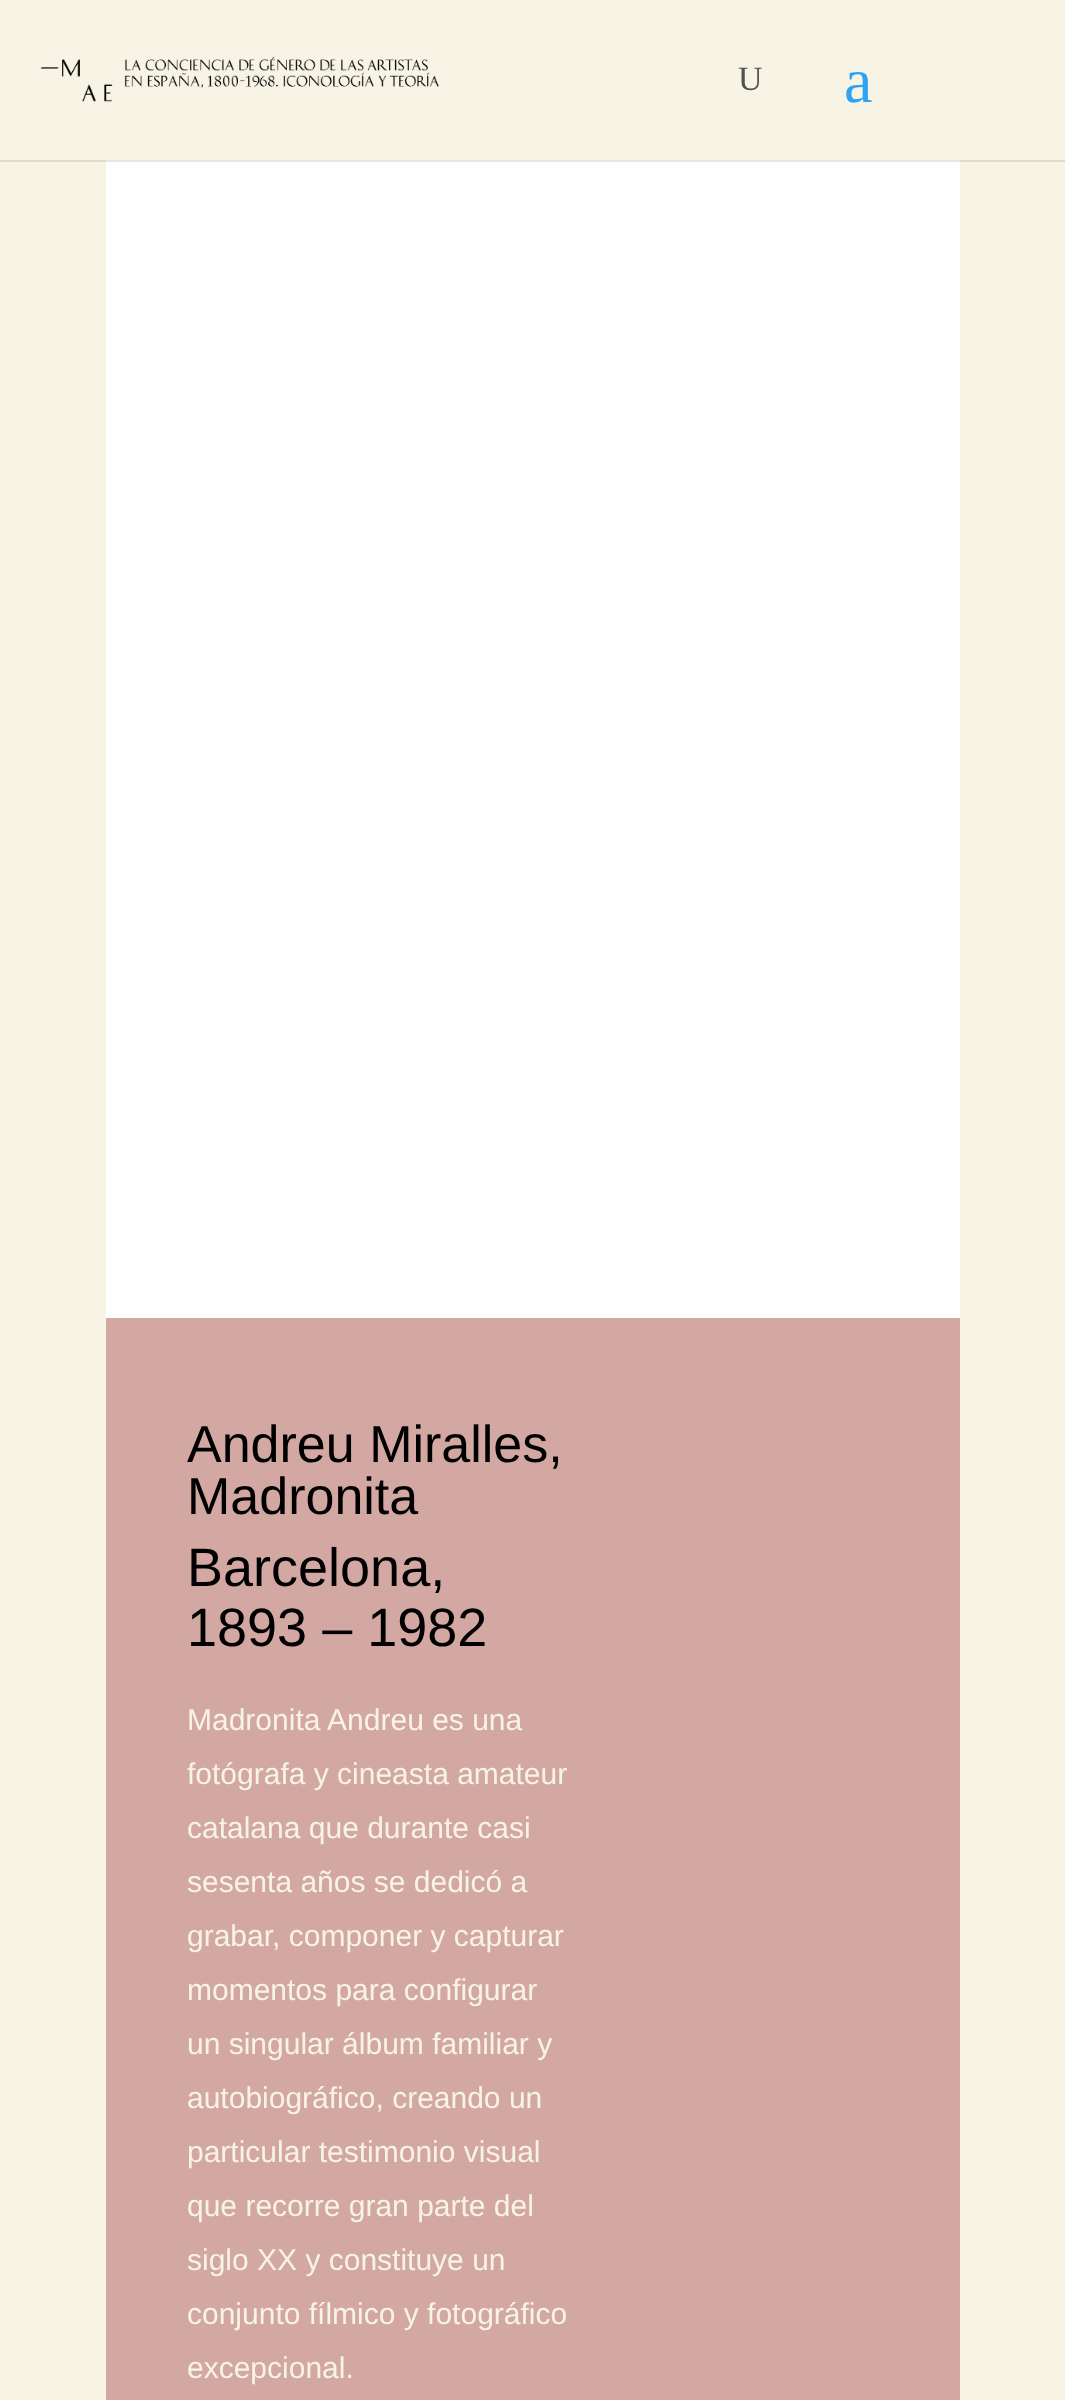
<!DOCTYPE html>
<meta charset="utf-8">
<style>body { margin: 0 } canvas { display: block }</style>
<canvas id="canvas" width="1065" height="2400"></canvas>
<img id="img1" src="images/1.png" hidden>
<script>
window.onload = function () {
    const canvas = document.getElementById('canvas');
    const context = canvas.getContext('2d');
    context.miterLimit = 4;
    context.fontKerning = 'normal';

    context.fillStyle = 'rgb(247, 244, 229)';
    context.fillRect(0, 0, 1065, 2400);
    context.fillStyle = 'rgb(222, 220, 206)';
    context.fillRect(0, 160, 1065, 2);
    context.drawImage(document.getElementById('img1'), 40, 56, 399, 46);
    context.fillStyle = 'rgb(230, 230, 230)';
    context.fillRect(106, 160, 854, 2);
    context.fillStyle = 'rgb(255, 255, 255)';
    context.fillRect(106, 162, 854, 1156);
    context.fillStyle = 'rgb(212, 168, 162)';
    context.fillRect(106, 1318, 854, 1082);
    context.font = '34px Liberation Serif';
    context.fillStyle = 'rgb(81, 81, 81)';
    context.fillText('U', 738, 90);
    context.font = '64px Liberation Serif';
    context.fillStyle = 'rgb(46, 163, 242)';
    context.fillText('a', 844, 102);
    context.font = '52px Liberation Sans';
    context.fillStyle = 'rgb(0, 0, 0)';
    context.fillText('Andreu Miralles,', 187, 1462);
    context.fillText('Madronita', 187, 1514);
    context.font = '54px Liberation Sans';
    context.fillText('Barcelona,', 187, 1586);
    context.fillText('1893 – 1982', 187, 1646);
    context.font = '30px Liberation Sans';
    context.fillStyle = 'rgb(247, 244, 229)';
    context.fillText('Madronita Andreu es una', 187, 1730);
    context.fillText('fotógrafa y cineasta amateur', 187, 1784);
    context.fillText('catalana que durante casi', 187, 1838);
    context.fillText('sesenta años se dedicó a', 187, 1892);
    context.fillText('grabar, componer y capturar', 187, 1946);
    context.fillText('momentos para configurar', 187, 2000);
    context.fillText('un singular álbum familiar y', 187, 2054);
    context.fillText('autobiográfico, creando un', 187, 2108);
    context.fillText('particular testimonio visual', 187, 2162);
    context.fillText('que recorre gran parte del', 187, 2216);
    context.fillText('siglo XX y constituye un', 187, 2270);
    context.fillText('conjunto fílmico y fotográfico', 187, 2324);
    context.fillText('excepcional.', 187, 2378);
};
</script>
